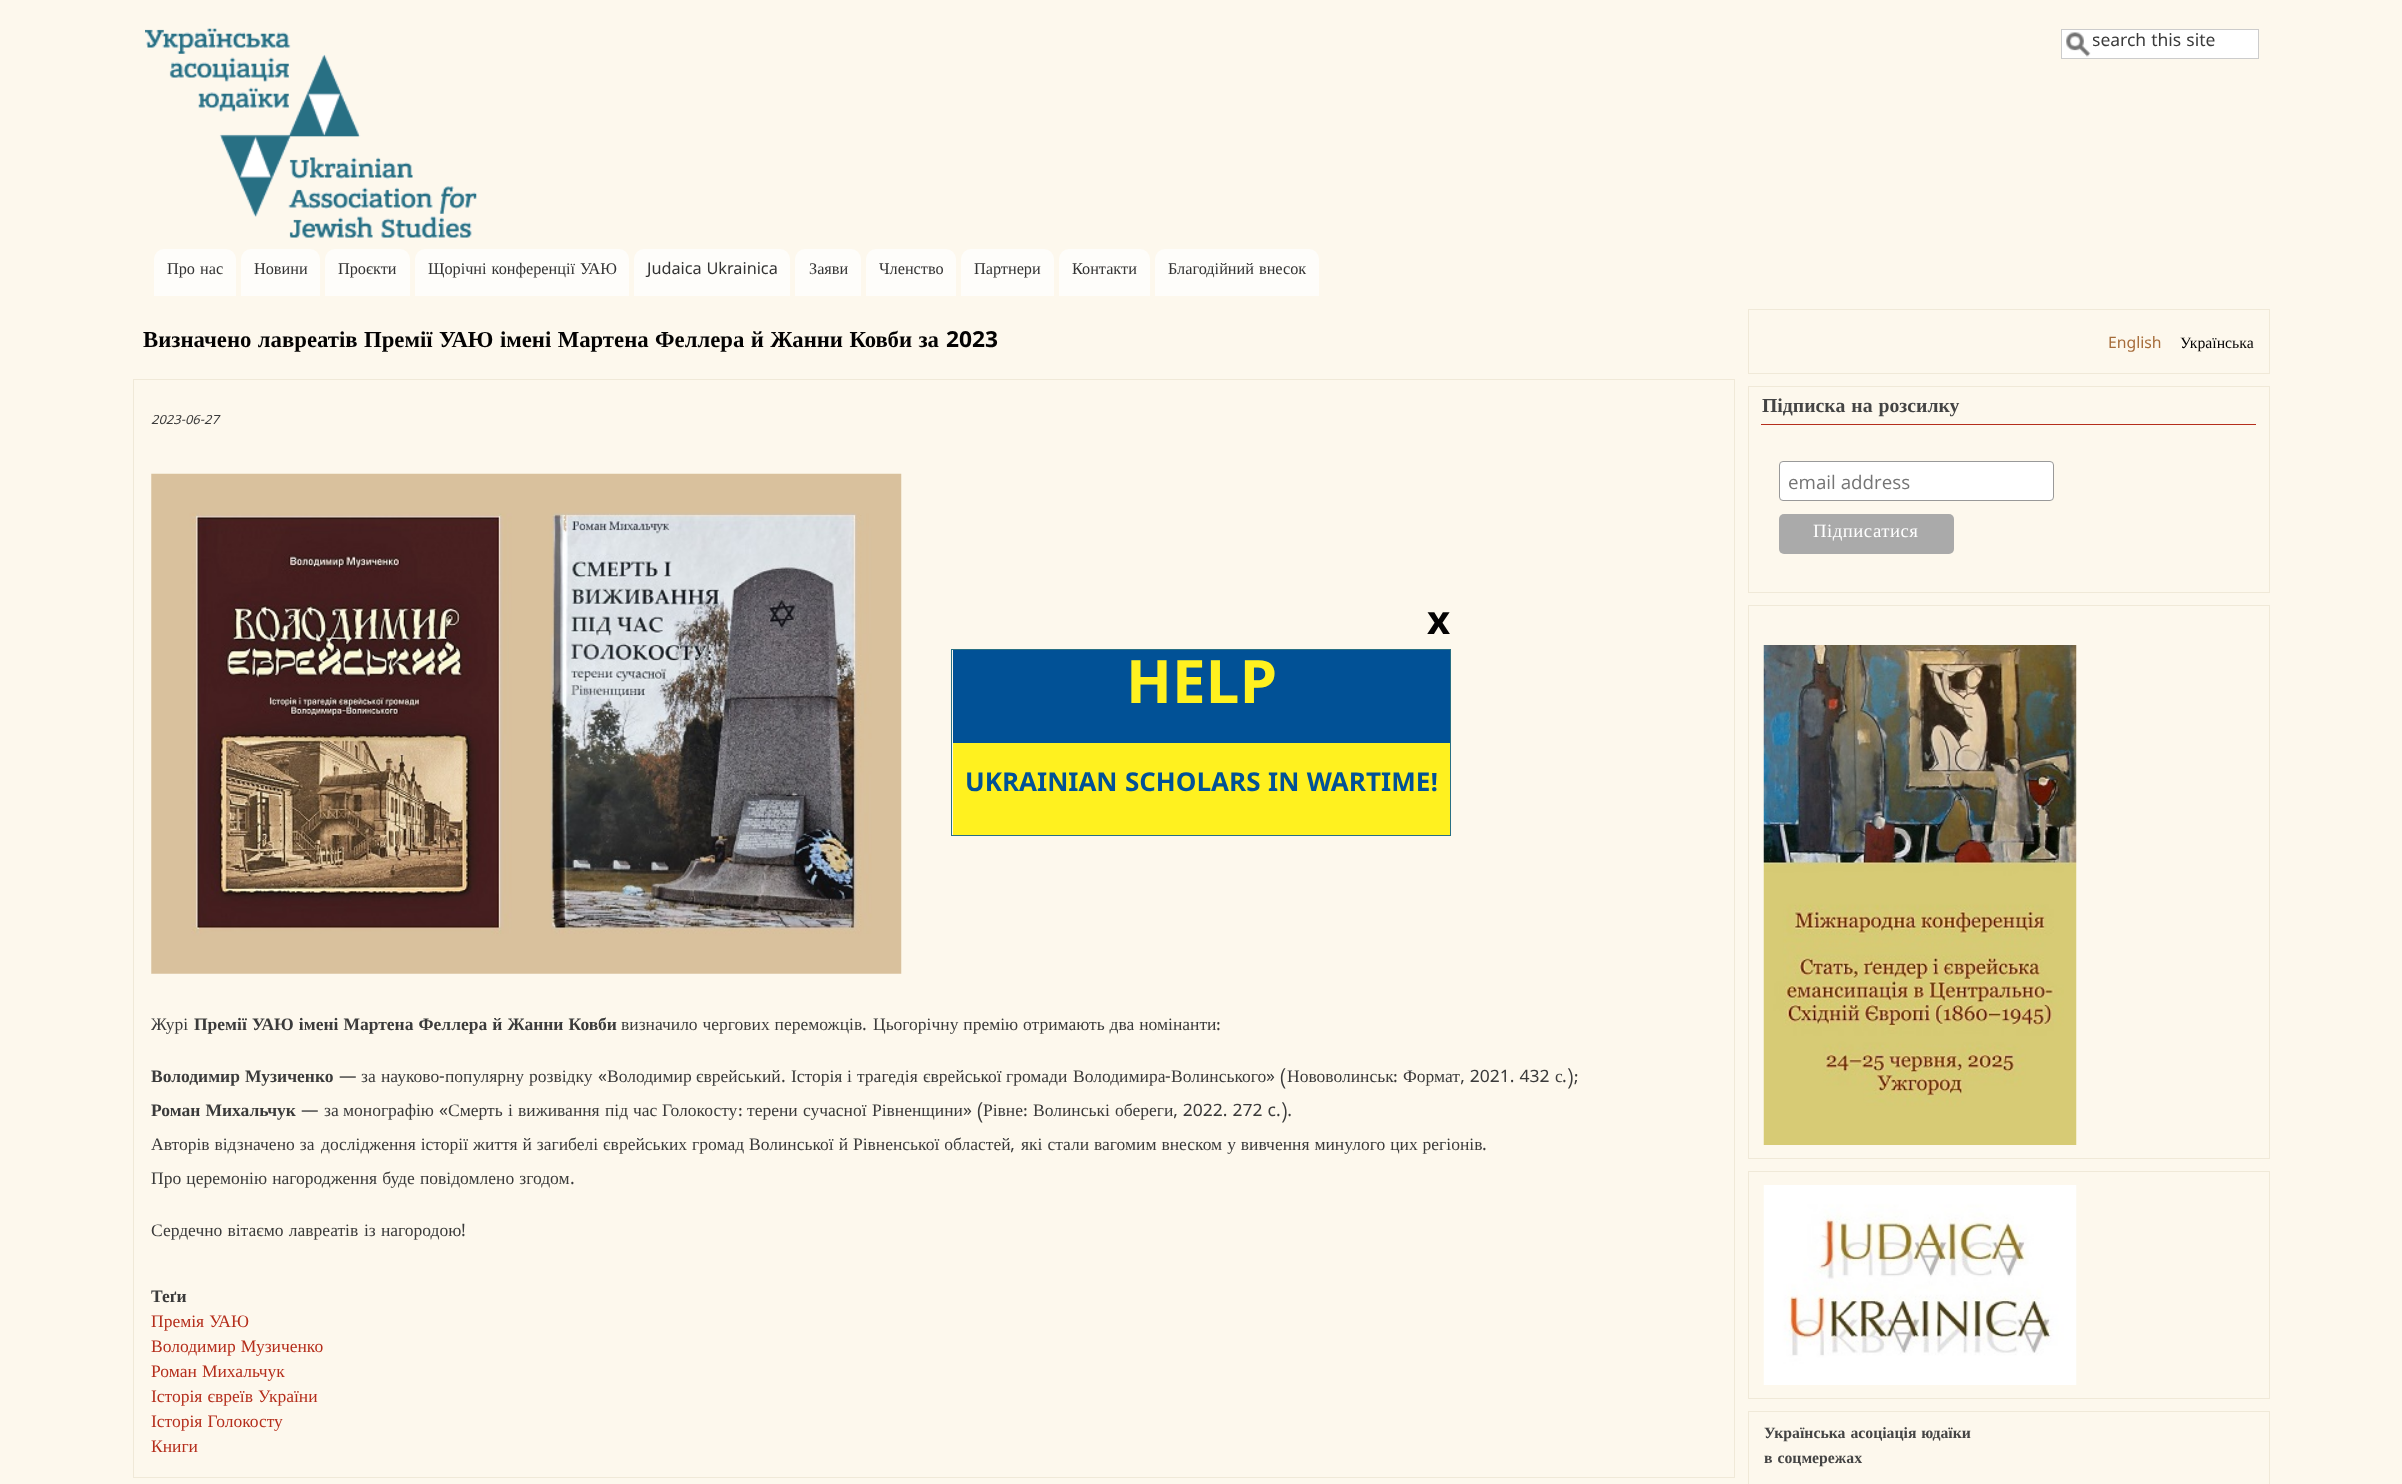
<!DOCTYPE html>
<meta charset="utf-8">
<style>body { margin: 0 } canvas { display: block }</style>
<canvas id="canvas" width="2402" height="1484"></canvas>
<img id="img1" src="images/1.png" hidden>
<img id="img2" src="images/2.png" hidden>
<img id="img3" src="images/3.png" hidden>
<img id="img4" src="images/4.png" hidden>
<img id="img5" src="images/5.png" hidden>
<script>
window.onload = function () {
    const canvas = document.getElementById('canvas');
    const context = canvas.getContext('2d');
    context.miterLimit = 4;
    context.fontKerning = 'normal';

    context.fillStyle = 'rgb(253, 248, 237)';
    context.fillRect(0, 0, 2402, 1484);
    context.drawImage(document.getElementById('img1'), 145, 28, 332, 210);
    context.fillStyle = 'rgb(255, 255, 255)';
    context.fillRect(2062, 30, 196, 28);
    context.drawImage(document.getElementById('img2'), 2066, 32, 25, 25);
    context.strokeStyle = 'rgb(204, 204, 204)';
    context.strokeRect(2061.5, 29.5, 197, 29);
    context.fillStyle = 'rgb(254, 253, 250)';
    context.beginPath();
    context.roundRect(154, 249, 82, 47, [10, 10, 0, 0]);
    context.fill();
    context.beginPath();
    context.roundRect(241, 249, 79, 47, [10, 10, 0, 0]);
    context.fill();
    context.beginPath();
    context.roundRect(325, 249, 85, 47, [10, 10, 0, 0]);
    context.fill();
    context.beginPath();
    context.roundRect(415, 249, 214, 47, [10, 10, 0, 0]);
    context.fill();
    context.beginPath();
    context.roundRect(634, 249, 156, 47, [10, 10, 0, 0]);
    context.fill();
    context.beginPath();
    context.roundRect(795, 249, 66, 47, [10, 10, 0, 0]);
    context.fill();
    context.beginPath();
    context.roundRect(866, 249, 90, 47, [10, 10, 0, 0]);
    context.fill();
    context.beginPath();
    context.roundRect(961, 249, 93, 47, [10, 10, 0, 0]);
    context.fill();
    context.beginPath();
    context.roundRect(1059, 249, 91, 47, [10, 10, 0, 0]);
    context.fill();
    context.beginPath();
    context.roundRect(1155, 249, 164, 47, [10, 10, 0, 0]);
    context.fill();
    context.strokeStyle = 'rgb(240, 233, 216)';
    context.strokeRect(133.5, 379.5, 1601, 1098);
    context.drawImage(document.getElementById('img3'), 151, 473, 751, 501);
    context.strokeRect(1748.5, 309.5, 521, 64);
    context.strokeRect(1748.5, 386.5, 521, 206);
    context.fillStyle = 'rgb(181, 46, 28)';
    context.fillRect(1761, 424, 495, 1);
    context.fillStyle = 'rgb(255, 255, 255)';
    context.beginPath();
    context.roundRect(1779.5, 461.5, 274, 39, 3.5);
    context.fill();
    context.strokeStyle = 'rgb(153, 153, 153)';
    context.stroke();
    context.fillStyle = 'rgb(170, 170, 170)';
    context.beginPath();
    context.roundRect(1779, 514, 175, 40, 5);
    context.fill();
    context.strokeStyle = 'rgb(240, 233, 216)';
    context.strokeRect(1748.5, 605.5, 521, 553);
    context.drawImage(document.getElementById('img4'), 1763, 645, 314, 500);
    context.strokeRect(1748.5, 1171.5, 521, 227);
    context.drawImage(document.getElementById('img5'), 1763, 1185, 314, 200);
    context.strokeRect(1748.5, 1411.5, 521, 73);
    context.strokeStyle = 'rgb(41, 112, 132)';
    context.strokeRect(951.5, 649.5, 499, 186);
    context.fillStyle = 'rgb(1, 81, 150)';
    context.fillRect(953, 650, 497, 93);
    context.fillStyle = 'rgb(255, 241, 31)';
    context.fillRect(953, 743, 497, 92);
    context.save();
    context.beginPath();
    context.rect(2093, 33, 155, 23);
    context.clip();
    context.font = '17.5px Noto Sans Kannada';
    context.fillStyle = 'rgb(59, 59, 59)';
    context.fillText('search this site', 2092, 46);
    context.restore();
    context.wordSpacing = '1px';
    context.font = '16.25px Liberation Serif';
    context.fillStyle = 'rgb(51, 51, 51)';
    context.fillText('Про нас', 167, 274);
    context.wordSpacing = '0px';
    context.fillText('Новини', 254, 274);
    context.fillText('Проєкти', 338, 274);
    context.wordSpacing = '1px';
    context.fillText('Щорічні конференції УАЮ', 428, 274);
    context.wordSpacing = '0px';
    context.font = '16.25px Noto Sans Kannada';
    context.fillText('Judaica Ukrainica', 647, 274);
    context.font = '16.25px Liberation Serif';
    context.fillText('Заяви', 809, 274);
    context.fillText('Членство', 879, 274);
    context.fillText('Партнери', 974, 274);
    context.fillText('Контакти', 1072, 274);
    context.wordSpacing = '1px';
    context.fillText('Благодійний внесок', 1168, 274);
    context.wordSpacing = '0.75px';
    context.font = 'bold 22.75px Liberation Serif';
    context.fillStyle = 'rgb(4, 3, 3)';
    context.fillText('Визначено лавреатів Премії УАЮ імені Мартена Феллера й Жанни Ковби за', 143, 347);
    context.wordSpacing = '0px';
    context.font = 'bold 22.75px Noto Sans Kannada';
    context.fillText('2023', 946, 347);
    context.font = 'italic 13px Noto Sans Kannada';
    context.fillStyle = 'rgb(59, 59, 59)';
    context.fillText('2023-06-27', 151, 424);
    context.font = '17.5px Liberation Serif';
    context.fillText('Журі', 151, 1030);
    context.wordSpacing = '0.75px';
    context.font = 'bold 17.5px Liberation Serif';
    context.fillText('Премії УАЮ імені Мартена Феллера й Жанни Ковби', 194, 1030);
    context.wordSpacing = '0.5px';
    context.font = '17.5px Liberation Serif';
    context.fillText('визначило чергових переможців', 621, 1030);
    context.wordSpacing = '0px';
    context.font = '17.5px Noto Sans Kannada';
    context.fillText('.', 862, 1030);
    context.wordSpacing = '0.5px';
    context.font = '17.5px Liberation Serif';
    context.fillText('Цьогорічну премію отримають два номінанти', 873, 1030);
    context.wordSpacing = '0px';
    context.font = '17.5px Noto Sans Kannada';
    context.fillText(':', 1216, 1030);
    context.wordSpacing = '0.75px';
    context.font = 'bold 17.5px Liberation Serif';
    context.fillText('Володимир Музиченко', 151, 1082);
    context.wordSpacing = '0px';
    context.font = '17.5px Noto Sans Kannada';
    context.fillText('—', 339, 1082);
    context.font = '17.5px Liberation Serif';
    context.fillText('за', 361, 1082);
    context.fillText('науково', 381, 1082);
    context.font = '17.5px Noto Sans Kannada';
    context.fillText('-', 439, 1082);
    context.font = '17.5px Liberation Serif';
    context.fillText('популярну', 445, 1082);
    context.fillText('розвідку', 529, 1082);
    context.font = '17.5px Noto Sans Kannada';
    context.fillText('«', 598, 1082);
    context.font = '17.5px Liberation Serif';
    context.fillText('Володимир', 607, 1082);
    context.fillText('єврейський', 696, 1082);
    context.fillText('Історія', 791, 1082);
    context.fillText('і', 847, 1082);
    context.fillText('трагедія', 857, 1082);
    context.fillText('єврейської', 923, 1082);
    context.fillText('громади', 1006, 1082);
    context.fillText('Володимира', 1073, 1082);
    context.font = '17.5px Noto Sans Kannada';
    context.fillText('-', 1165, 1082);
    context.font = '17.5px Liberation Serif';
    context.fillText('Волинського', 1171, 1082);
    context.font = '17.5px Noto Sans Kannada';
    context.fillText('» (', 1266, 1082);
    context.font = '17.5px Liberation Serif';
    context.fillText('Нововолинськ', 1287, 1082);
    context.font = '17.5px Noto Sans Kannada';
    context.fillText(':', 1393, 1082);
    context.font = '17.5px Liberation Serif';
    context.fillText('Формат', 1403, 1082);
    context.font = '17.5px Noto Sans Kannada';
    context.fillText(', 2021. 432', 1460, 1082);
    context.font = '17.5px Liberation Serif';
    context.fillText('с', 1555, 1082);
    context.font = '17.5px Noto Sans Kannada';
    context.fillText('.);', 1562, 1082);
    context.fillText('.', 781, 1082);
    context.wordSpacing = '0.75px';
    context.font = 'bold 17.5px Liberation Serif';
    context.fillText('Роман Михальчук', 151, 1116);
    context.wordSpacing = '0px';
    context.font = '17.5px Noto Sans Kannada';
    context.fillText('—', 301, 1116);
    context.font = '17.5px Liberation Serif';
    context.fillText('за', 324, 1116);
    context.fillText('монографію', 343, 1116);
    context.font = '17.5px Noto Sans Kannada';
    context.fillText('«', 439, 1116);
    context.font = '17.5px Liberation Serif';
    context.fillText('Смерть', 448, 1116);
    context.fillText('і', 508, 1116);
    context.fillText('виживання', 518, 1116);
    context.fillText('під', 605, 1116);
    context.fillText('час', 633, 1116);
    context.fillText('Голокосту', 662, 1116);
    context.font = '17.5px Noto Sans Kannada';
    context.fillText(':', 738, 1116);
    context.font = '17.5px Liberation Serif';
    context.fillText('терени', 747, 1116);
    context.fillText('сучасної', 803, 1116);
    context.fillText('Рівненщини', 872, 1116);
    context.font = '17.5px Noto Sans Kannada';
    context.fillText('» (', 963, 1116);
    context.font = '17.5px Liberation Serif';
    context.fillText('Рівне', 983, 1116);
    context.font = '17.5px Noto Sans Kannada';
    context.fillText(':', 1023, 1116);
    context.font = '17.5px Liberation Serif';
    context.fillText('Волинські', 1033, 1116);
    context.fillText('обереги', 1115, 1116);
    context.font = '17.5px Noto Sans Kannada';
    context.fillText(', 2022. 272 c.).', 1173, 1116);
    context.wordSpacing = '0.6px';
    context.font = '17.5px Liberation Serif';
    context.fillText('Авторів відзначено за', 151, 1150);
    context.fillText('дослідження історії життя й загибелі єврейських громад Волинської й Рівненської областей', 321, 1150);
    context.wordSpacing = '0px';
    context.font = '17.5px Noto Sans Kannada';
    context.fillText(',', 1010, 1150);
    context.wordSpacing = '0.6px';
    context.font = '17.5px Liberation Serif';
    context.fillText('які стали вагомим внеском у вивчення минулого цих регіонів', 1021, 1150);
    context.wordSpacing = '0px';
    context.font = '17.5px Noto Sans Kannada';
    context.fillText('.', 1482, 1150);
    context.wordSpacing = '0.75px';
    context.font = '17.5px Liberation Serif';
    context.fillText('Про церемонію нагородження буде повідомлено згодом', 151, 1184);
    context.wordSpacing = '0px';
    context.font = '17.5px Noto Sans Kannada';
    context.fillText('.', 570, 1184);
    context.wordSpacing = '0.75px';
    context.font = '17.5px Liberation Serif';
    context.fillText('Сердечно вітаємо лавреатів', 151, 1236);
    context.fillText('із нагородою', 364, 1236);
    context.wordSpacing = '0px';
    context.font = '17.5px Noto Sans Kannada';
    context.fillText('!', 461, 1236);
    context.font = 'bold 17.5px Liberation Serif';
    context.fillText('Теґи', 151, 1302);
    context.wordSpacing = '0.75px';
    context.font = '17.5px Liberation Serif';
    context.fillStyle = 'rgb(181, 46, 28)';
    context.fillText('Премія УАЮ', 151, 1327);
    context.fillText('Володимир Музиченко', 151, 1352);
    context.fillText('Роман Михальчук', 151, 1377);
    context.fillText('Історія євреїв України', 151, 1402);
    context.fillText('Історія Голокосту', 151, 1427);
    context.wordSpacing = '0px';
    context.fillText('Книги', 151, 1452);
    context.font = '15.75px Noto Sans Kannada';
    context.fillStyle = 'rgb(166, 108, 58)';
    context.fillText('English', 2108, 348);
    context.font = '15.75px Liberation Serif';
    context.fillStyle = 'rgb(4, 3, 3)';
    context.fillText('Українська', 2180, 348);
    context.wordSpacing = '1px';
    context.font = 'bold 19.75px Liberation Serif';
    context.fillStyle = 'rgb(68, 68, 68)';
    context.fillText('Підписка на розсилку', 1762, 412);
    context.wordSpacing = '0px';
    context.font = '18.75px Open Sans';
    context.fillStyle = 'rgb(117, 117, 117)';
    context.fillText('email address', 1788, 489);
    context.letterSpacing = '0.5px';
    context.font = '18.75px Liberation Serif';
    context.fillStyle = 'rgb(255, 255, 255)';
    context.fillText('Підписатися', 1813, 537);
    context.letterSpacing = '0px';
    context.wordSpacing = '1px';
    context.font = 'bold 15.75px Liberation Serif';
    context.fillStyle = 'rgb(68, 68, 68)';
    context.fillText('Українська асоціація юдаїки', 1764, 1438);
    context.fillText('в соцмережах', 1764, 1463);
    context.wordSpacing = '0px';
    context.font = 'bold 40px Noto Sans Kannada';
    context.fillStyle = 'rgb(4, 3, 3)';
    context.fillText('x', 1427, 634);
    context.font = 'bold 60px Noto Sans Kannada';
    context.fillStyle = 'rgb(255, 241, 31)';
    context.fillText('HELP', 1126, 703);
    context.font = 'bold 26px Noto Sans Kannada';
    context.fillStyle = 'rgb(1, 81, 150)';
    context.fillText('UKRAINIAN SCHOLARS IN WARTIME!', 965, 791);
};
</script>
